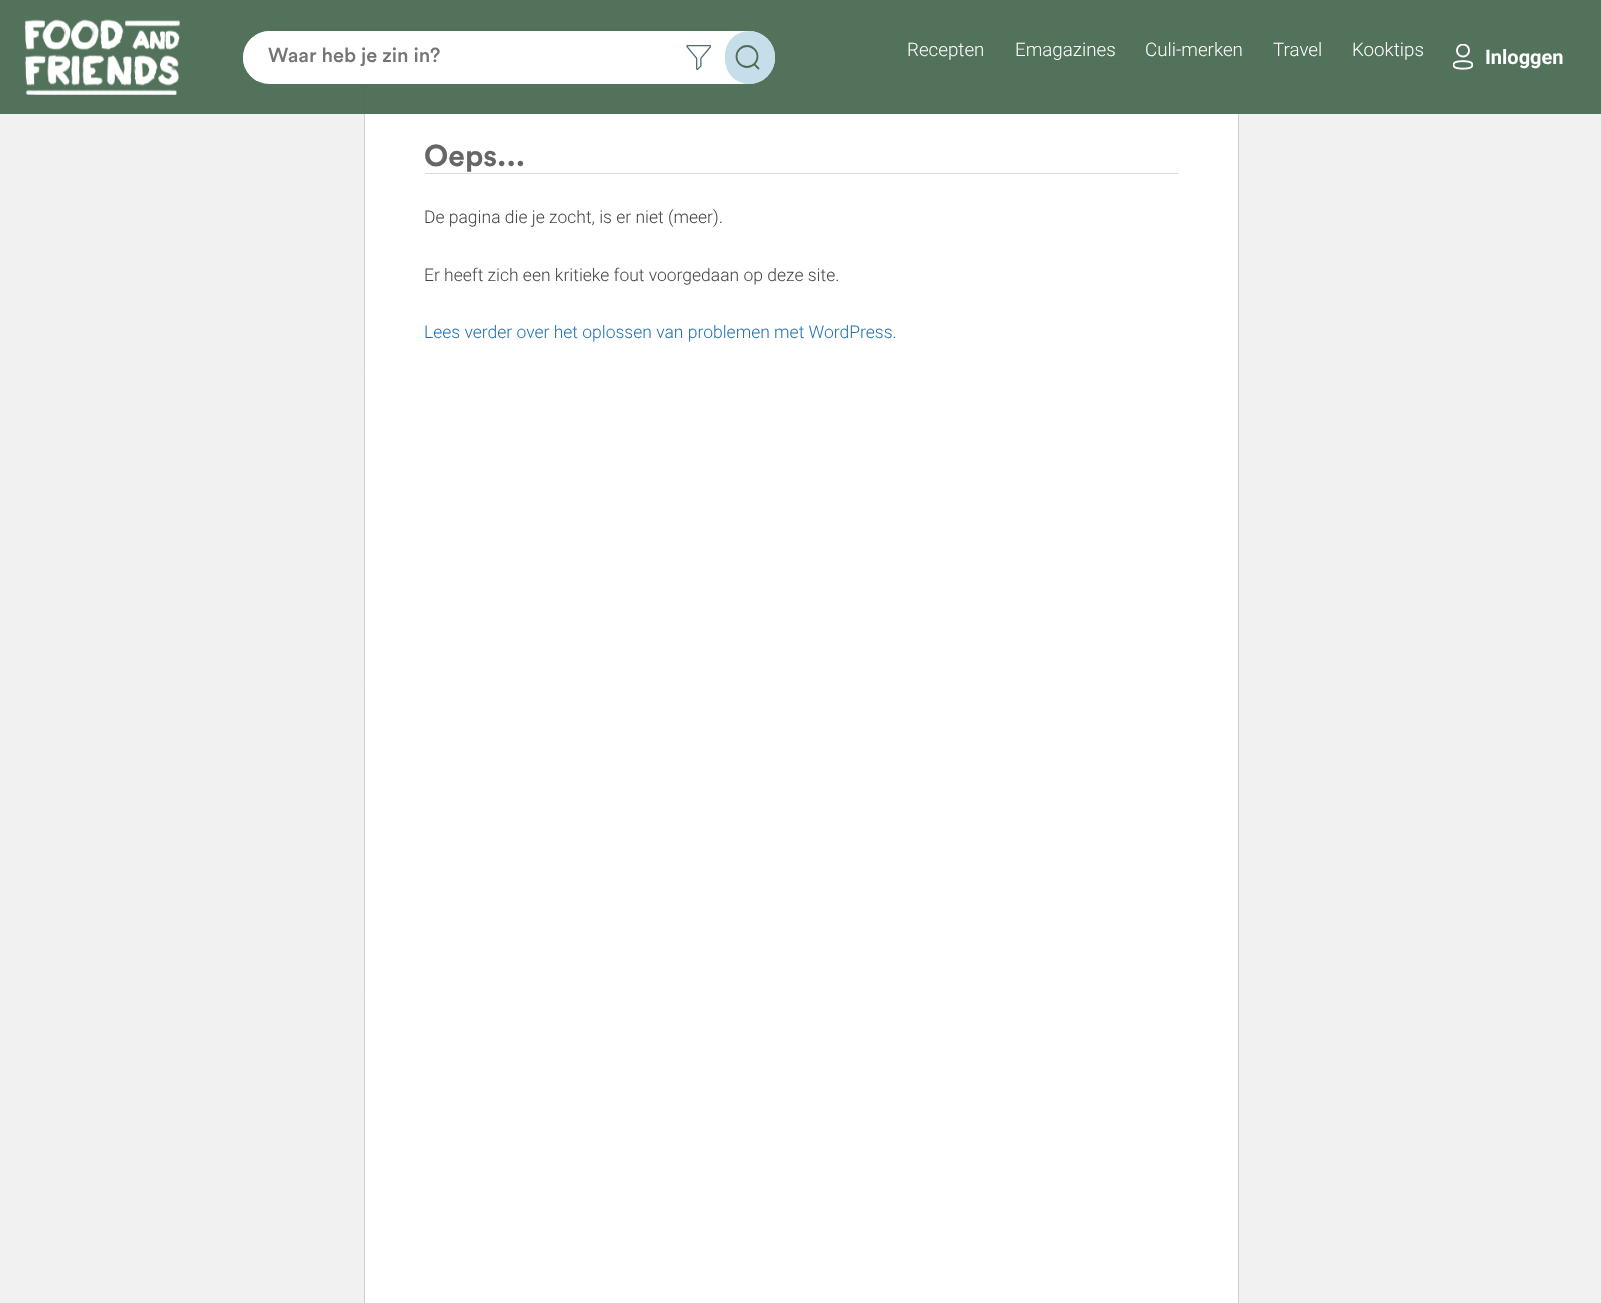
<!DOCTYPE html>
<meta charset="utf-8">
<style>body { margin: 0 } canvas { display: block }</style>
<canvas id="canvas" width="1601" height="1303"></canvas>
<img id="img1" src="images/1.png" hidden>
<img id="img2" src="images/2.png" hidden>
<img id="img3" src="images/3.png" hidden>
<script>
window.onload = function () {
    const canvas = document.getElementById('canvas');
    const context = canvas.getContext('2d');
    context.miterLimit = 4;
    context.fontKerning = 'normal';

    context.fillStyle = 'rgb(241, 241, 241)';
    context.fillRect(0, 0, 1601, 1303);
    context.fillStyle = 'rgb(255, 255, 255)';
    context.beginPath();
    context.rect(364.5, 63.5, 874, 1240);
    context.fill();
    context.strokeStyle = 'rgb(204, 208, 212)';
    context.stroke();
    context.fillStyle = 'rgba(76, 108, 84, 0.96)';
    context.fillRect(0, 0, 1601, 114);
    context.drawImage(document.getElementById('img1'), 25, 19, 155, 76);
    context.fillStyle = 'rgb(255, 255, 255)';
    context.beginPath();
    context.roundRect(243, 31, 532, 53, 26.5);
    context.fill();
    context.save();
    context.beginPath();
    context.roundRect(243, 31, 532, 53, 26.5);
    context.clip();
    context.beginPath();
    context.roundRect(243, 31, 430, 50, [26.5, 0, 0, 0]);
    context.fill();
    context.restore();
    context.drawImage(document.getElementById('img2'), 686, 45, 25, 25);
    context.fillStyle = 'rgb(198, 222, 234)';
    context.beginPath();
    context.roundRect(725, 31, 50, 53, [25, 26.5, 26.5, 25]);
    context.fill();
    context.beginPath();
    context.arc(747, 56.5, 10.5, 0, 2 * Math.PI);
    context.strokeStyle = 'rgb(76, 108, 84)';
    context.lineWidth = 1.8;
    context.stroke();
    context.beginPath();
    context.moveTo(754.5, 64.5);
    context.lineTo(758.5, 68.5);
    context.lineCap = 'round';
    context.lineJoin = 'round';
    context.stroke();
    context.drawImage(document.getElementById('img3'), 1453, 44, 20, 26);
    context.fillStyle = 'rgb(218, 218, 218)';
    context.fillRect(425, 173, 753, 1);
    context.font = '500 20px Circular';
    context.fillStyle = 'rgb(117, 117, 117)';
    context.fillText('Waar heb je zin in?', 268, 62);
    context.font = '300 18.75px Roboto';
    context.fillStyle = 'rgb(255, 255, 255)';
    context.fillText('Recepten', 907, 56);
    context.fillText('Emagazines', 1015, 56);
    context.fillText('Culi-merken', 1145, 56);
    context.fillText('Travel', 1273, 56);
    context.fillText('Kooktips', 1352, 56);
    context.font = 'bold 20px Roboto';
    context.fillText('Inloggen', 1485, 64);
    context.font = 'bold 30px Circular';
    context.fillStyle = 'rgb(102, 102, 102)';
    context.fillText('Oeps...', 424, 166);
    context.font = '300 17.5px Roboto';
    context.fillStyle = 'rgb(68, 68, 68)';
    context.fillText('De pagina die je zocht, is er niet (meer).', 424, 223);
    context.fillText('Er heeft zich een kritieke fout voorgedaan op deze site.', 424, 281);
    context.fillStyle = 'rgb(34, 113, 177)';
    context.fillText('Lees verder over het oplossen van problemen met WordPress.', 424, 338);
};
</script>
